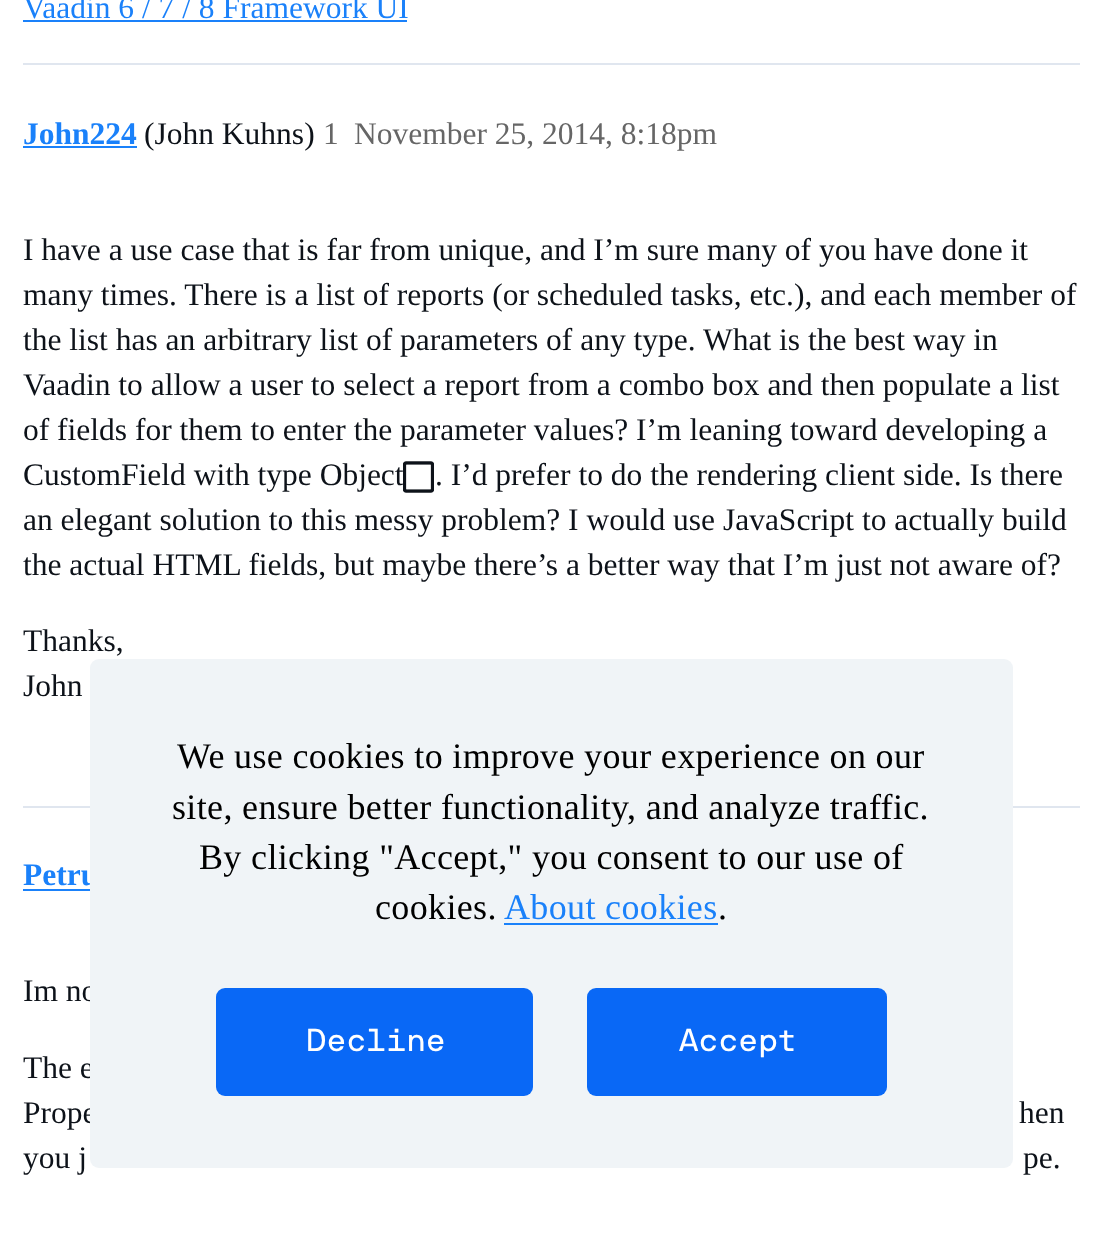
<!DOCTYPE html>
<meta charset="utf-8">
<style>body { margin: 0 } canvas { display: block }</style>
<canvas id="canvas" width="1102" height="1257"></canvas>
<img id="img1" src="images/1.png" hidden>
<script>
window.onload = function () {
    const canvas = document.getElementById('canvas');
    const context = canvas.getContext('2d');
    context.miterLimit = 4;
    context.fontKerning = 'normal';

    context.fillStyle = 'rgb(255, 255, 255)';
    context.fillRect(0, 0, 1102, 1257);
    context.fillStyle = 'rgb(26, 129, 250)';
    context.fillRect(23, 20, 384, 2);
    context.fillStyle = 'rgb(224, 230, 239)';
    context.fillRect(23, 63, 1057, 2);
    context.fillStyle = 'rgb(26, 129, 250)';
    context.fillRect(23, 146, 114, 2);
    context.drawImage(document.getElementById('img1'), 403, 461, 31, 32);
    context.fillStyle = 'rgb(224, 230, 239)';
    context.fillRect(23, 806, 1057, 2);
    context.fillStyle = 'rgb(26, 129, 250)';
    context.fillRect(23, 889, 67, 2);
    context.font = '31.5px Liberation Serif';
    context.fillText('Vaadin 6 / 7 / 8 Framework UI', 23, 18);
    context.font = 'bold 31.5px Liberation Serif';
    context.fillText('John224', 23, 144);
    context.font = '31.5px Liberation Serif';
    context.fillStyle = 'rgb(13, 18, 25)';
    context.fillText('(John Kuhns)', 144, 144);
    context.fillStyle = 'rgb(102, 102, 102)';
    context.fillText('1', 323, 144);
    context.fillText('November 25, 2014, 8:18pm', 354, 144);
    context.fillStyle = 'rgb(13, 18, 25)';
    context.fillText('I have a use case that is far from unique, and I’m sure many of you have done it', 23, 260);
    context.fillText('many times. There is a list of reports (or scheduled tasks, etc.), and each member of', 23, 305);
    context.fillText('the list has an arbitrary list of parameters of any type. What is the best way in', 23, 350);
    context.fillText('Vaadin to allow a user to select a report from a combo box and then populate a list', 23, 395);
    context.fillText('of fields for them to enter the parameter values? I’m leaning toward developing a', 23, 440);
    context.fillText('CustomField with type Object', 23, 485);
    context.fillText('. I’d prefer to do the rendering client side. Is there', 435, 485);
    context.fillText('an elegant solution to this messy problem? I would use JavaScript to actually build', 23, 530);
    context.fillText('the actual HTML fields, but maybe there’s a better way that I’m just not aware of?', 23, 575);
    context.fillText('Thanks,', 23, 651);
    context.fillText('John', 23, 696);
    context.font = 'bold 31.5px Liberation Serif';
    context.fillStyle = 'rgb(26, 129, 250)';
    context.fillText('Petru', 23, 885);
    context.font = '31.5px Liberation Serif';
    context.fillStyle = 'rgb(13, 18, 25)';
    context.fillText('Im no', 23, 1001);
    context.fillText('The e', 23, 1078);
    context.fillText('Prope', 23, 1123);
    context.fillText('hen', 1019, 1123);
    context.fillText('you j', 23, 1168);
    context.fillText('pe.', 1023, 1168);
    context.fillStyle = 'rgb(240, 244, 247)';
    context.beginPath();
    context.roundRect(90, 659, 923, 509, 9);
    context.fill();
    context.letterSpacing = '0.35px';
    context.font = '36px Liberation Serif';
    context.fillStyle = 'rgb(0, 0, 0)';
    context.fillText('We use cookies to improve your experience on our', 177, 768);
    context.fillText('site, ensure better functionality, and analyze traffic.', 172, 819);
    context.fillText('By clicking "Accept," you consent to our use of', 199, 869);
    context.fillText('cookies.', 375, 919);
    context.fillStyle = 'rgb(26, 129, 250)';
    context.fillText('About cookies', 504, 919);
    context.fillRect(504, 923, 214, 2);
    context.fillStyle = 'rgb(0, 0, 0)';
    context.fillText('.', 718, 919);
    context.fillStyle = 'rgb(9, 104, 246)';
    context.beginPath();
    context.roundRect(216, 988, 317, 108, 9);
    context.fill();
    context.letterSpacing = '-1.5px';
    context.font = '31.5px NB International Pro';
    context.fillStyle = 'rgb(255, 255, 255)';
    context.fillText('Decline', 306, 1051);
    context.fillStyle = 'rgb(9, 104, 246)';
    context.beginPath();
    context.roundRect(587, 988, 300, 108, 9);
    context.fill();
    context.fillStyle = 'rgb(255, 255, 255)';
    context.fillText('Accept', 678, 1051);
};
</script>
